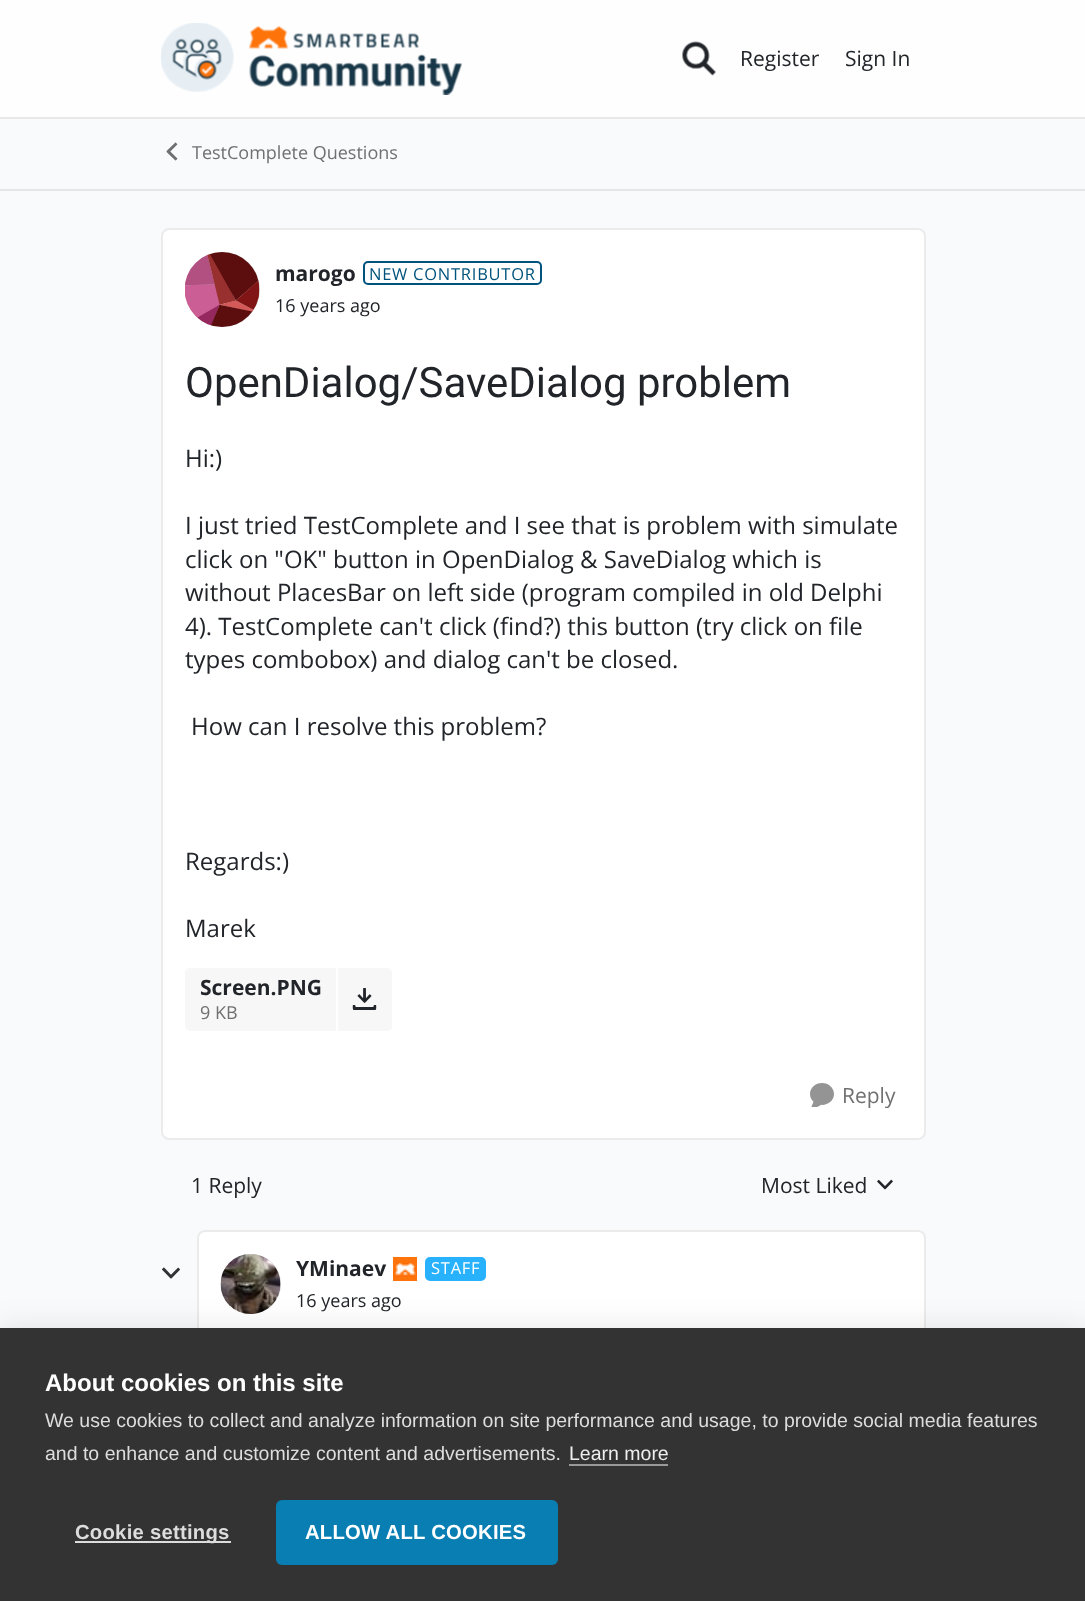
<!DOCTYPE html>
<meta charset="utf-8">
<style>body { margin: 0 } canvas { display: block }</style>
<canvas id="canvas" width="1085" height="1601"></canvas>
<img id="img1" src="images/1.png" hidden>
<img id="img2" src="images/2.png" hidden>
<img id="img3" src="images/3.png" hidden>
<img id="img4" src="images/4.png" hidden>
<img id="img5" src="images/5.png" hidden>
<img id="img6" src="images/6.png" hidden>
<img id="img7" src="images/7.png" hidden>
<img id="img8" src="images/8.png" hidden>
<img id="img9" src="images/9.png" hidden>
<img id="img10" src="images/10.png" hidden>
<script>
window.onload = function () {
    const canvas = document.getElementById('canvas');
    const context = canvas.getContext('2d');
    context.miterLimit = 4;
    context.fontKerning = 'normal';

    context.fillStyle = 'rgb(248, 250, 251)';
    context.fillRect(0, 0, 1085, 1601);
    context.fillStyle = 'rgba(255, 255, 255, 0.8)';
    context.fillRect(0, 0, 1085, 117);
    context.fillStyle = 'rgb(233, 233, 233)';
    context.fillRect(0, 117, 1085, 2);
    context.drawImage(document.getElementById('img1'), 161, 23, 301, 72);
    context.drawImage(document.getElementById('img2'), 682, 41, 34, 35);
    context.fillStyle = 'rgb(228, 230, 231)';
    context.fillRect(0, 189, 1085, 2);
    context.drawImage(document.getElementById('img3'), 166, 142, 12, 19);
    context.fillStyle = 'rgb(255, 255, 255)';
    context.beginPath();
    context.roundRect(161, 228, 765, 912, 8);
    context.fill();
    context.beginPath();
    context.roundRect(162, 229, 763, 910, 7);
    context.strokeStyle = 'rgba(0, 0, 0, 0.08)';
    context.lineWidth = 2;
    context.stroke();
    context.fillStyle = 'rgb(217, 217, 217)';
    context.beginPath();
    context.arc(222.5, 289.5, 37.5, 0, 2 * Math.PI);
    context.fill();
    context.drawImage(document.getElementById('img4'), 185, 252, 75, 75);
    context.beginPath();
    context.roundRect(364, 262, 177, 22, 4);
    context.strokeStyle = 'rgb(0, 83, 124)';
    context.stroke();
    context.fillStyle = 'rgb(247, 247, 247)';
    context.beginPath();
    context.roundRect(185, 968, 151, 63, [5, 0, 0, 5]);
    context.fill();
    context.beginPath();
    context.roundRect(336, 968, 56, 63, [0, 5, 5, 0]);
    context.fill();
    context.fillStyle = 'rgb(255, 255, 255)';
    context.fillRect(336, 968, 2, 63);
    context.drawImage(document.getElementById('img5'), 352, 988, 25, 22);
    context.drawImage(document.getElementById('img6'), 810, 1083, 24, 24);
    context.drawImage(document.getElementById('img7'), 877, 1179, 16, 11);
    context.drawImage(document.getElementById('img8'), 162, 1267, 18, 12);
    context.beginPath();
    context.roundRect(197, 1230, 729, 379, 8);
    context.fill();
    context.beginPath();
    context.roundRect(198, 1231, 727, 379, 7);
    context.strokeStyle = 'rgba(0, 0, 0, 0.08)';
    context.stroke();
    context.fillStyle = 'rgb(217, 217, 217)';
    context.beginPath();
    context.arc(251, 1284, 30, 0, 2 * Math.PI);
    context.fill();
    context.drawImage(document.getElementById('img9'), 220, 1254, 61, 60);
    context.drawImage(document.getElementById('img10'), 393, 1257, 24, 24);
    context.fillStyle = 'rgb(40, 177, 253)';
    context.beginPath();
    context.roundRect(426, 1258, 59, 22, 4);
    context.fill();
    context.strokeStyle = 'rgb(40, 177, 253)';
    context.stroke();
    context.fillStyle = 'rgba(0, 0, 0, 0.1)';
    context.filter = 'blur(15px)';
    context.beginPath();
    context.rect(0, 1328, 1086, 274);
    context.fill();
    context.filter = 'none';
    context.fillStyle = 'rgb(51, 51, 51)';
    context.fillRect(0, 1328, 1085, 273);
    context.fillStyle = 'rgb(153, 153, 153)';
    context.fillRect(569, 1464, 99, 2);
    context.fillStyle = 'rgb(221, 221, 221)';
    context.fillRect(75, 1541, 156, 2);
    context.fillStyle = 'rgb(9, 126, 178)';
    context.beginPath();
    context.roundRect(276, 1500, 282, 65, 6);
    context.fill();
    context.font = '21px Open Sans';
    context.fillStyle = 'rgb(33, 36, 41)';
    context.fillText('Register', 740, 66);
    context.fillText('Sign In', 845, 66);
    context.font = '18px Open Sans';
    context.fillStyle = 'rgb(112, 112, 112)';
    context.fillText('TestComplete Questions', 192, 159);
    context.font = 'bold 21px Open Sans';
    context.fillStyle = 'rgb(33, 36, 41)';
    context.fillText('marogo', 275, 281);
    context.letterSpacing = '0.75px';
    context.font = '16.5px Open Sans';
    context.fillStyle = 'rgb(0, 83, 124)';
    context.fillText('NEW CONTRIBUTOR', 369, 280);
    context.letterSpacing = '0px';
    context.font = '18px Open Sans';
    context.fillStyle = 'rgb(33, 36, 41)';
    context.fillText('16 years ago', 275, 312);
    context.font = '42px Roboto';
    context.fillText('OpenDialog/SaveDialog problem', 185, 397);
    context.font = '24px Open Sans';
    context.fillText('Hi:)', 185, 467);
    context.fillText('I just tried TestComplete and I see that is problem with simulate', 185, 534);
    context.fillText('click on "OK" button in OpenDialog & SaveDialog which is', 185, 568);
    context.fillText('without PlacesBar on left side (program compiled in old Delphi', 185, 601);
    context.fillText('4). TestComplete can\'t click (find?) this button (try click on file', 185, 635);
    context.fillText('types combobox) and dialog can\'t be closed.', 185, 668);
    context.fillText('How can I resolve this problem?', 191, 735);
    context.fillText('Regards:)', 185, 870);
    context.fillText('Marek', 185, 937);
    context.font = 'bold 21px Open Sans';
    context.fillText('Screen.PNG', 200, 995);
    context.font = '18px Open Sans';
    context.fillStyle = 'rgb(112, 112, 112)';
    context.fillText('9 KB', 200, 1019);
    context.font = '21px Open Sans';
    context.fillText('Reply', 842, 1103);
    context.fillStyle = 'rgb(33, 36, 41)';
    context.fillText('1 Reply', 191, 1193);
    context.fillText('Most Liked', 761, 1193);
    context.font = 'bold 21px Open Sans';
    context.fillText('YMinaev', 296, 1276);
    context.letterSpacing = '0.75px';
    context.font = '16.5px Open Sans';
    context.fillStyle = 'rgb(255, 255, 255)';
    context.fillText('STAFF', 431, 1274);
    context.letterSpacing = '0px';
    context.font = '18px Open Sans';
    context.fillStyle = 'rgb(33, 36, 41)';
    context.fillText('16 years ago', 296, 1307);
    context.font = 'bold 24px Liberation Sans';
    context.fillStyle = 'rgb(255, 255, 255)';
    context.fillText('About cookies on this site', 45, 1391);
    context.font = '19.5px Liberation Sans';
    context.fillStyle = 'rgb(221, 221, 221)';
    context.fillText('We use cookies to collect and analyze information on site performance and usage, to provide social media features', 45, 1427);
    context.fillText('and to enhance and customize content and advertisements.', 45, 1460);
    context.fillStyle = 'rgb(238, 238, 238)';
    context.fillText('Learn more', 569, 1460);
    context.letterSpacing = '0.25px';
    context.font = 'bold 20.25px Liberation Sans';
    context.fillStyle = 'rgb(221, 221, 221)';
    context.fillText('Cookie settings', 75, 1539);
    context.fillStyle = 'rgb(255, 255, 255)';
    context.fillText('ALLOW ALL COOKIES', 305, 1539);
};
</script>
